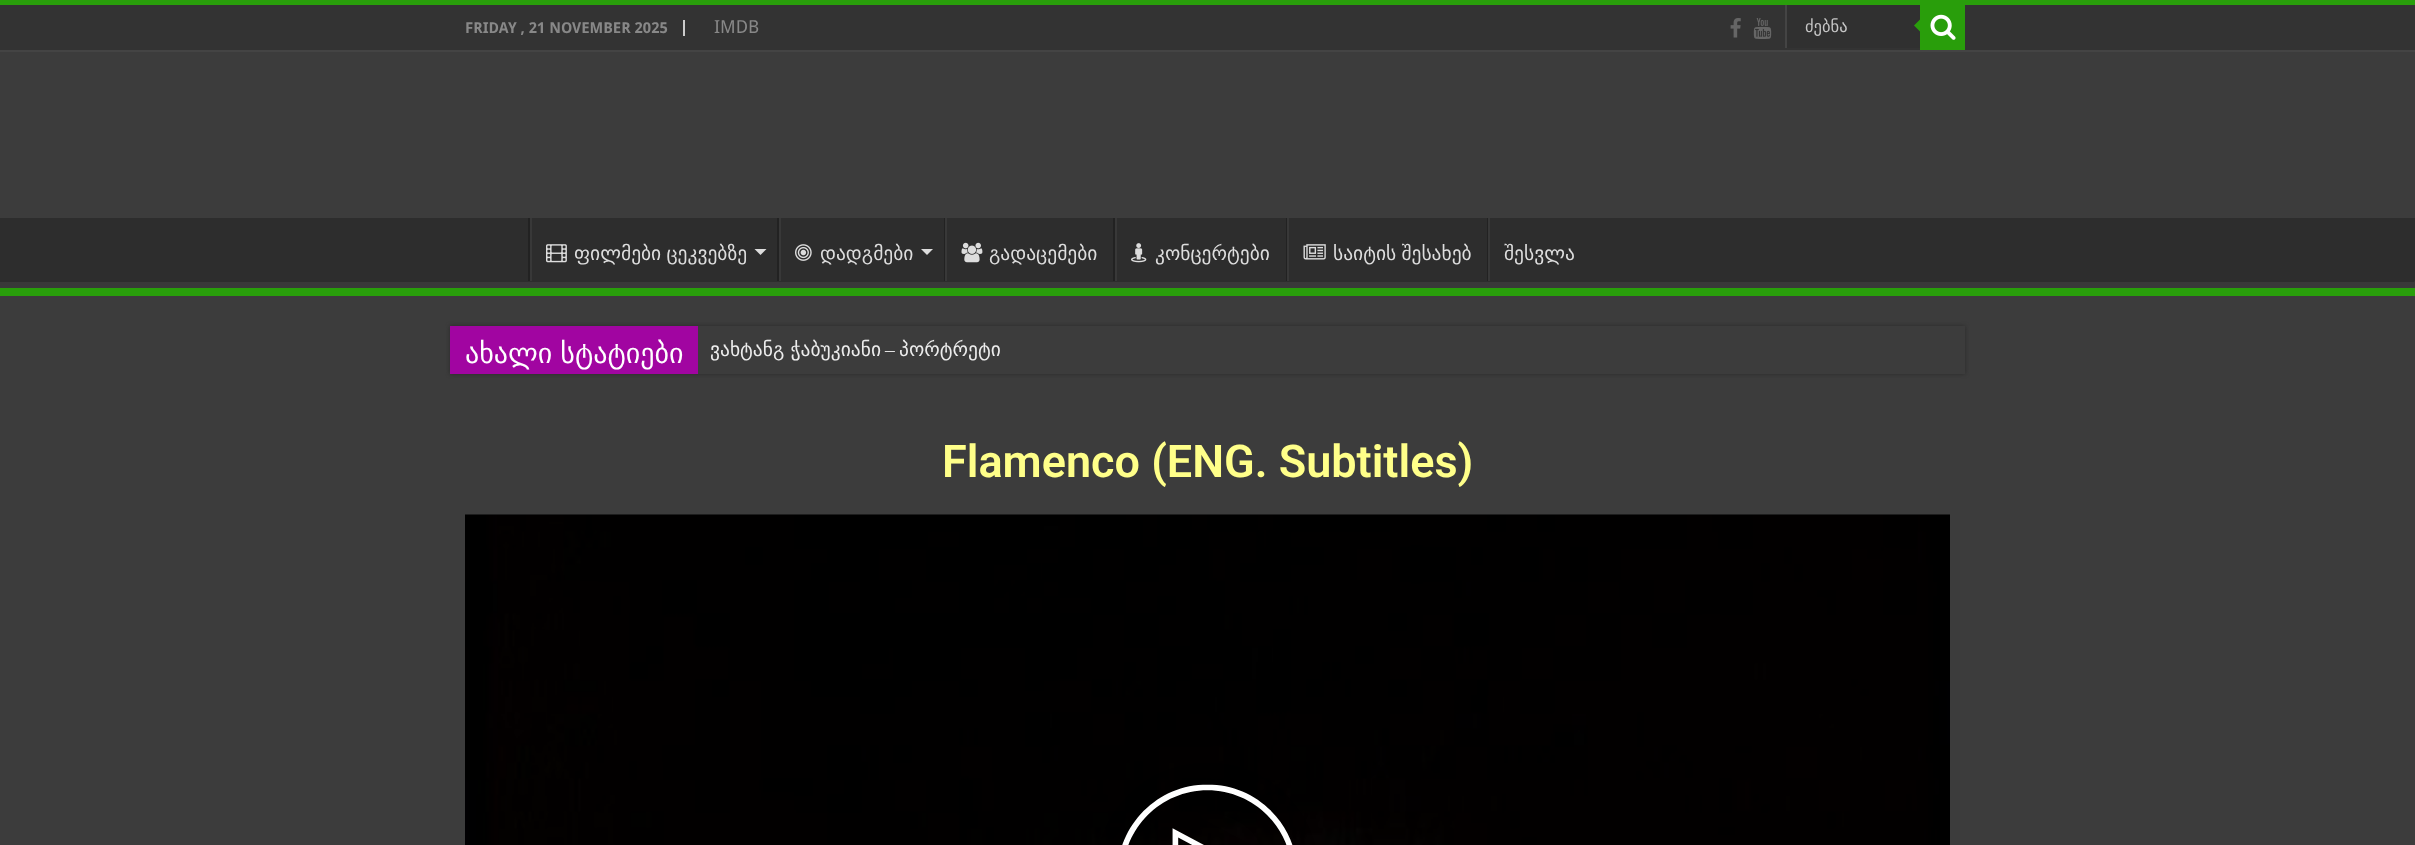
<!DOCTYPE html>
<meta charset="utf-8">
<style>body { margin: 0 } canvas { display: block }</style>
<canvas id="canvas" width="2415" height="845"></canvas>
<img id="img1" src="images/1.png" hidden>
<img id="img2" src="images/2.png" hidden>
<img id="img3" src="images/3.png" hidden>
<img id="img4" src="images/4.png" hidden>
<img id="img5" src="images/5.png" hidden>
<img id="img6" src="images/6.png" hidden>
<img id="img7" src="images/7.png" hidden>
<img id="img8" src="images/8.png" hidden>
<img id="img9" src="images/9.png" hidden>
<script>
window.onload = function () {
    const canvas = document.getElementById('canvas');
    const context = canvas.getContext('2d');
    context.miterLimit = 4;
    context.fontKerning = 'normal';

    context.fillStyle = 'rgb(60, 60, 60)';
    context.fillRect(0, 0, 2415, 845);
    context.fillStyle = 'rgb(41, 158, 11)';
    context.fillRect(0, 0, 2415, 5);
    context.fillStyle = 'rgb(51, 51, 51)';
    context.fillRect(0, 5, 2415, 45);
    context.fillStyle = 'rgb(68, 68, 68)';
    context.fillRect(0, 50, 2415, 2);
    context.fillStyle = 'rgb(204, 204, 204)';
    context.fillRect(683, 20, 2, 16);
    context.drawImage(document.getElementById('img1'), 1730, 18, 11, 20);
    context.drawImage(document.getElementById('img2'), 1753, 18, 19, 21);
    context.fillStyle = 'rgb(48, 48, 48)';
    context.fillRect(1787, 5, 133, 43);
    context.fillStyle = 'rgb(68, 68, 68)';
    context.fillRect(1785, 5, 2, 43);
    context.fillStyle = 'rgb(41, 158, 11)';
    context.fillRect(1920, 5, 45, 45);
    context.drawImage(document.getElementById('img3'), 1930, 14, 26, 26);
    context.beginPath();
    context.moveTo(1920, 19.5);
    context.lineTo(1920, 31.5);
    context.lineTo(1914, 25.5);
    context.closePath();
    context.fill();
    context.fillStyle = 'rgb(45, 45, 45)';
    context.fillRect(0, 218, 2415, 64);
    context.save();
    context.beginPath();
    context.rect(0, 218, 2415, 70);
    context.clip();
    context.fillStyle = 'rgb(57, 57, 57)';
    context.beginPath();
    context.moveTo(-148, 69);
    context.lineTo(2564, 69);
    context.lineTo(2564, 436);
    context.lineTo(-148, 436);
    context.closePath();
    context.moveTo(-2, 208);
    context.lineTo(2414, 208);
    context.bezierCurveTo(2414, 208, 2415, 209, 2415, 210);
    context.lineTo(2415, 280);
    context.bezierCurveTo(2415, 281, 2414, 282, 2414, 282);
    context.lineTo(-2, 282);
    context.bezierCurveTo(-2, 282, -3, 281, -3, 280);
    context.lineTo(-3, 210);
    context.bezierCurveTo(-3, 209, -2, 208, -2, 208);
    context.closePath();
    context.fill('evenodd');
    context.restore();
    context.fillStyle = 'rgb(41, 158, 11)';
    context.fillRect(0, 288, 2415, 8);
    context.fillStyle = 'rgb(34, 34, 34)';
    context.fillRect(528, 218, 2, 63);
    context.fillStyle = 'rgb(56, 56, 56)';
    context.fillRect(530, 218, 2, 63);
    context.drawImage(document.getElementById('img4'), 546, 244, 21, 19);
    context.fillStyle = 'rgb(221, 221, 221)';
    context.beginPath();
    context.moveTo(754.5, 249);
    context.lineTo(766.5, 249);
    context.lineTo(760.5, 255);
    context.closePath();
    context.fill();
    context.fillStyle = 'rgb(34, 34, 34)';
    context.fillRect(777, 218, 2, 63);
    context.fillStyle = 'rgb(56, 56, 56)';
    context.fillRect(779, 218, 2, 63);
    context.drawImage(document.getElementById('img5'), 795, 244, 17, 17);
    context.fillStyle = 'rgb(221, 221, 221)';
    context.beginPath();
    context.moveTo(921, 249);
    context.lineTo(933, 249);
    context.lineTo(927, 255);
    context.closePath();
    context.fill();
    context.fillStyle = 'rgb(34, 34, 34)';
    context.fillRect(944, 218, 1, 63);
    context.fillStyle = 'rgb(56, 56, 56)';
    context.fillRect(945, 218, 2, 63);
    context.drawImage(document.getElementById('img6'), 961, 242, 22, 21);
    context.fillStyle = 'rgb(34, 34, 34)';
    context.fillRect(1113, 218, 2, 63);
    context.fillStyle = 'rgb(56, 56, 56)';
    context.fillRect(1115, 218, 2, 63);
    context.drawImage(document.getElementById('img7'), 1131, 243, 16, 20);
    context.fillStyle = 'rgb(34, 34, 34)';
    context.fillRect(1286, 218, 1, 63);
    context.fillStyle = 'rgb(56, 56, 56)';
    context.fillRect(1287, 218, 2, 63);
    context.drawImage(document.getElementById('img8'), 1303, 244, 23, 16);
    context.fillStyle = 'rgb(34, 34, 34)';
    context.fillRect(1487, 218, 1, 63);
    context.fillStyle = 'rgb(56, 56, 56)';
    context.fillRect(1488, 218, 2, 63);
    context.fillStyle = 'rgb(42, 42, 42)';
    context.filter = 'blur(2px)';
    context.beginPath();
    context.rect(450, 326, 1515, 48);
    context.fill();
    context.filter = 'none';
    context.fillStyle = 'rgb(60, 60, 60)';
    context.fillRect(698, 326, 1267, 48);
    context.fillStyle = 'rgb(161, 5, 161)';
    context.fillRect(450, 326, 248, 48);
    context.drawImage(document.getElementById('img9'), 465, 514, 1485, 331);
    context.font = 'bold 15px Droid Sans';
    context.fillStyle = 'rgb(136, 136, 136)';
    context.fillText('FRIDAY , 21 NOVEMBER 2025', 465, 33);
    context.font = '18px Droid Sans';
    context.fillText('IMDB', 714, 33);
    context.font = '16.5px DejaVu Sans';
    context.fillStyle = 'rgb(197, 197, 197)';
    context.fillText('ძებნა', 1805, 32);
    context.wordSpacing = '-1px';
    context.font = '19.5px DejaVu Sans';
    context.fillStyle = 'rgb(221, 221, 221)';
    context.fillText('ფილმები ცეკვებზე', 574, 260);
    context.wordSpacing = '0px';
    context.fillText('დადგმები', 820, 260);
    context.fillText('გადაცემები', 989, 260);
    context.fillText('კონცერტები', 1155, 260);
    context.wordSpacing = '-1px';
    context.fillText('საიტის შესახებ', 1333, 260);
    context.wordSpacing = '0px';
    context.fillText('შესვლა', 1504, 260);
    context.wordSpacing = '-1px';
    context.font = '28px DejaVu Sans';
    context.fillStyle = 'rgb(255, 255, 255)';
    context.fillText('ახალი სტატიები', 465, 363);
    context.wordSpacing = '0px';
    context.font = '19.5px DejaVu Sans';
    context.fillStyle = 'rgb(236, 236, 236)';
    context.fillText('ვახტანგ ჭაბუკიანი', 710, 356);
    context.font = '19.5px Liberation Serif';
    context.fillText('–', 885, 356);
    context.font = '19.5px DejaVu Sans';
    context.fillText('პორტრეტი', 899, 356);
    context.font = '600 45px Roboto';
    context.fillStyle = 'rgb(255, 255, 137)';
    context.fillText('Flamenco (ENG. Subtitles)', 942, 477);
};
</script>
